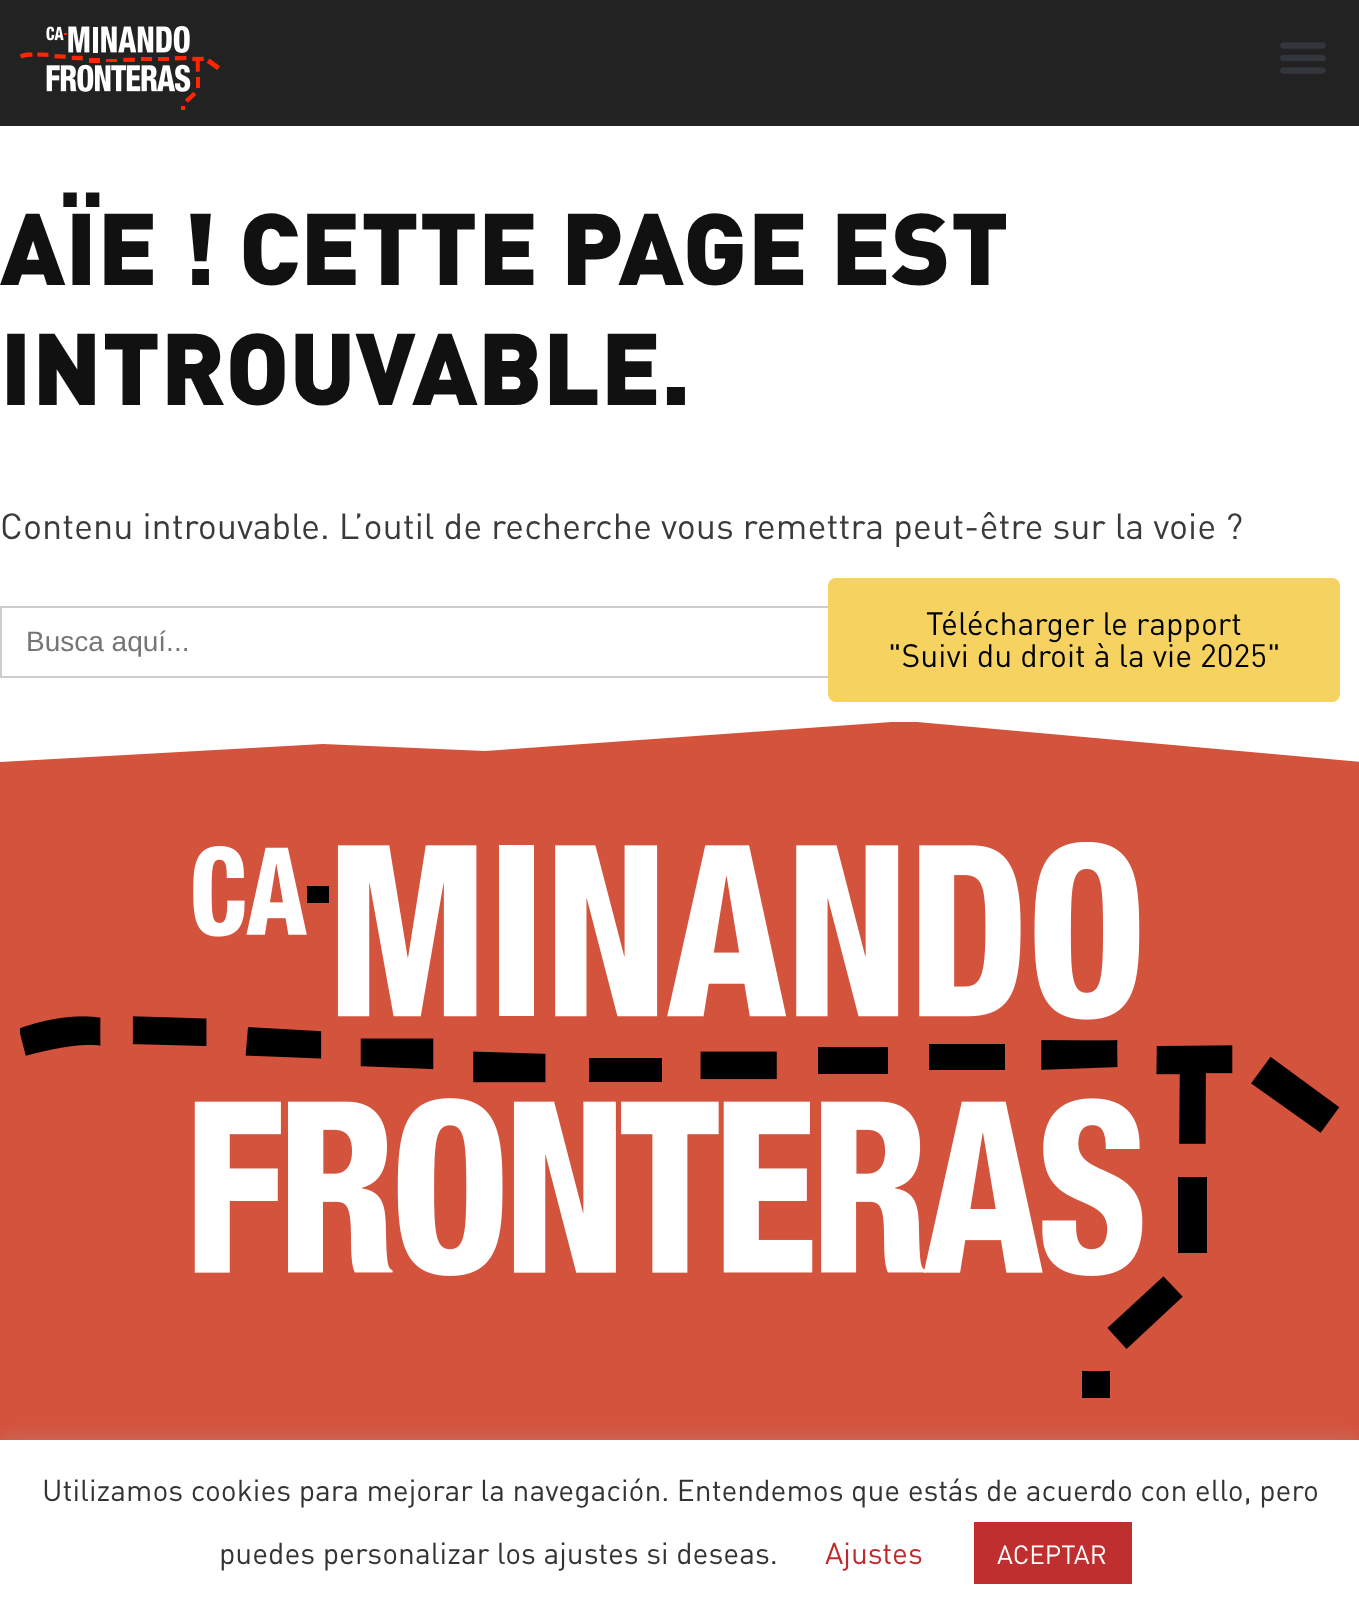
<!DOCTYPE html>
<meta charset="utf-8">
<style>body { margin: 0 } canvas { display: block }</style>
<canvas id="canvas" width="1359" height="1617"></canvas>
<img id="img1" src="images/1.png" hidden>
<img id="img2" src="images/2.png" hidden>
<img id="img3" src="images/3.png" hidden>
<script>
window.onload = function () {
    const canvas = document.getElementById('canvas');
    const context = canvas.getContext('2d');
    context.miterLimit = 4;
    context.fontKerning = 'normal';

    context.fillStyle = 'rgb(255, 255, 255)';
    context.fillRect(0, 0, 1359, 1617);
    context.fillStyle = 'rgb(34, 34, 34)';
    context.fillRect(0, 0, 1359, 126);
    context.drawImage(document.getElementById('img1'), 20, 26, 200, 84);
    context.drawImage(document.getElementById('img2'), 1280, 42, 46, 32);
    context.fillStyle = 'rgb(204, 204, 204)';
    context.fillRect(0, 606, 828, 2);
    context.fillRect(0, 676, 828, 2);
    context.fillRect(0, 606, 2, 72);
    context.fillStyle = 'rgb(246, 211, 97)';
    context.beginPath();
    context.roundRect(828, 578, 512, 124, 8);
    context.fill();
    context.fillStyle = 'rgb(212, 83, 61)';
    context.fillRect(0, 722, 1359, 718);
    context.save();
    context.beginPath();
    context.rect(0, 720, 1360, 44);
    context.clip();
    context.fillStyle = 'rgb(255, 255, 255)';
    context.beginPath();
    context.moveTo(323, 744);
    context.lineTo(485, 751);
    context.lineTo(906, 721);
    context.lineTo(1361, 762);
    context.lineTo(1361, 718);
    context.lineTo(-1, 718);
    context.lineTo(-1, 762);
    context.fill();
    context.restore();
    context.drawImage(document.getElementById('img3'), 20, 842, 1320, 556);
    context.fillStyle = 'rgba(172, 171, 171, 0.3)';
    context.filter = 'blur(10px)';
    context.beginPath();
    context.rect(0, 1438, 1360, 178);
    context.fill();
    context.filter = 'none';
    context.fillStyle = 'rgb(255, 255, 255)';
    context.fillRect(0, 1440, 1359, 177);
    context.fillStyle = 'rgb(191, 47, 47)';
    context.fillRect(974, 1522, 158, 62);
    context.font = '900 100px DIN';
    context.fillStyle = 'rgb(17, 17, 17)';
    context.fillText('AÏE ! CETTE PAGE EST', 0, 285);
    context.fillText('INTROUVABLE.', 0, 405);
    context.font = '36px DIN';
    context.fillStyle = 'rgb(58, 58, 58)';
    context.fillText('Contenu introuvable. L’outil de recherche vous remettra peut-être sur la voie ?', 0, 539);
    context.font = '28px Liberation Sans';
    context.fillStyle = 'rgb(117, 117, 117)';
    context.fillText('Busca aquí...', 26, 651);
    context.font = '32px DIN';
    context.fillStyle = 'rgb(0, 0, 0)';
    context.fillText('Télécharger le rapport', 926, 635);
    context.fillText('"Suivi du droit à la vie 2025"', 888, 667);
    context.font = '30px DIN';
    context.fillStyle = 'rgb(51, 51, 51)';
    context.fillText('Utilizamos cookies para mejorar la navegación. Entendemos que estás de acuerdo con ello, pero', 42, 1501);
    context.fillText('puedes personalizar los ajustes si deseas.', 219, 1564);
    context.fillStyle = 'rgb(191, 43, 43)';
    context.fillText('Ajustes', 825, 1564);
    context.font = '26px DIN';
    context.fillStyle = 'rgb(255, 255, 255)';
    context.fillText('ACEPTAR', 997, 1564);
};
</script>
